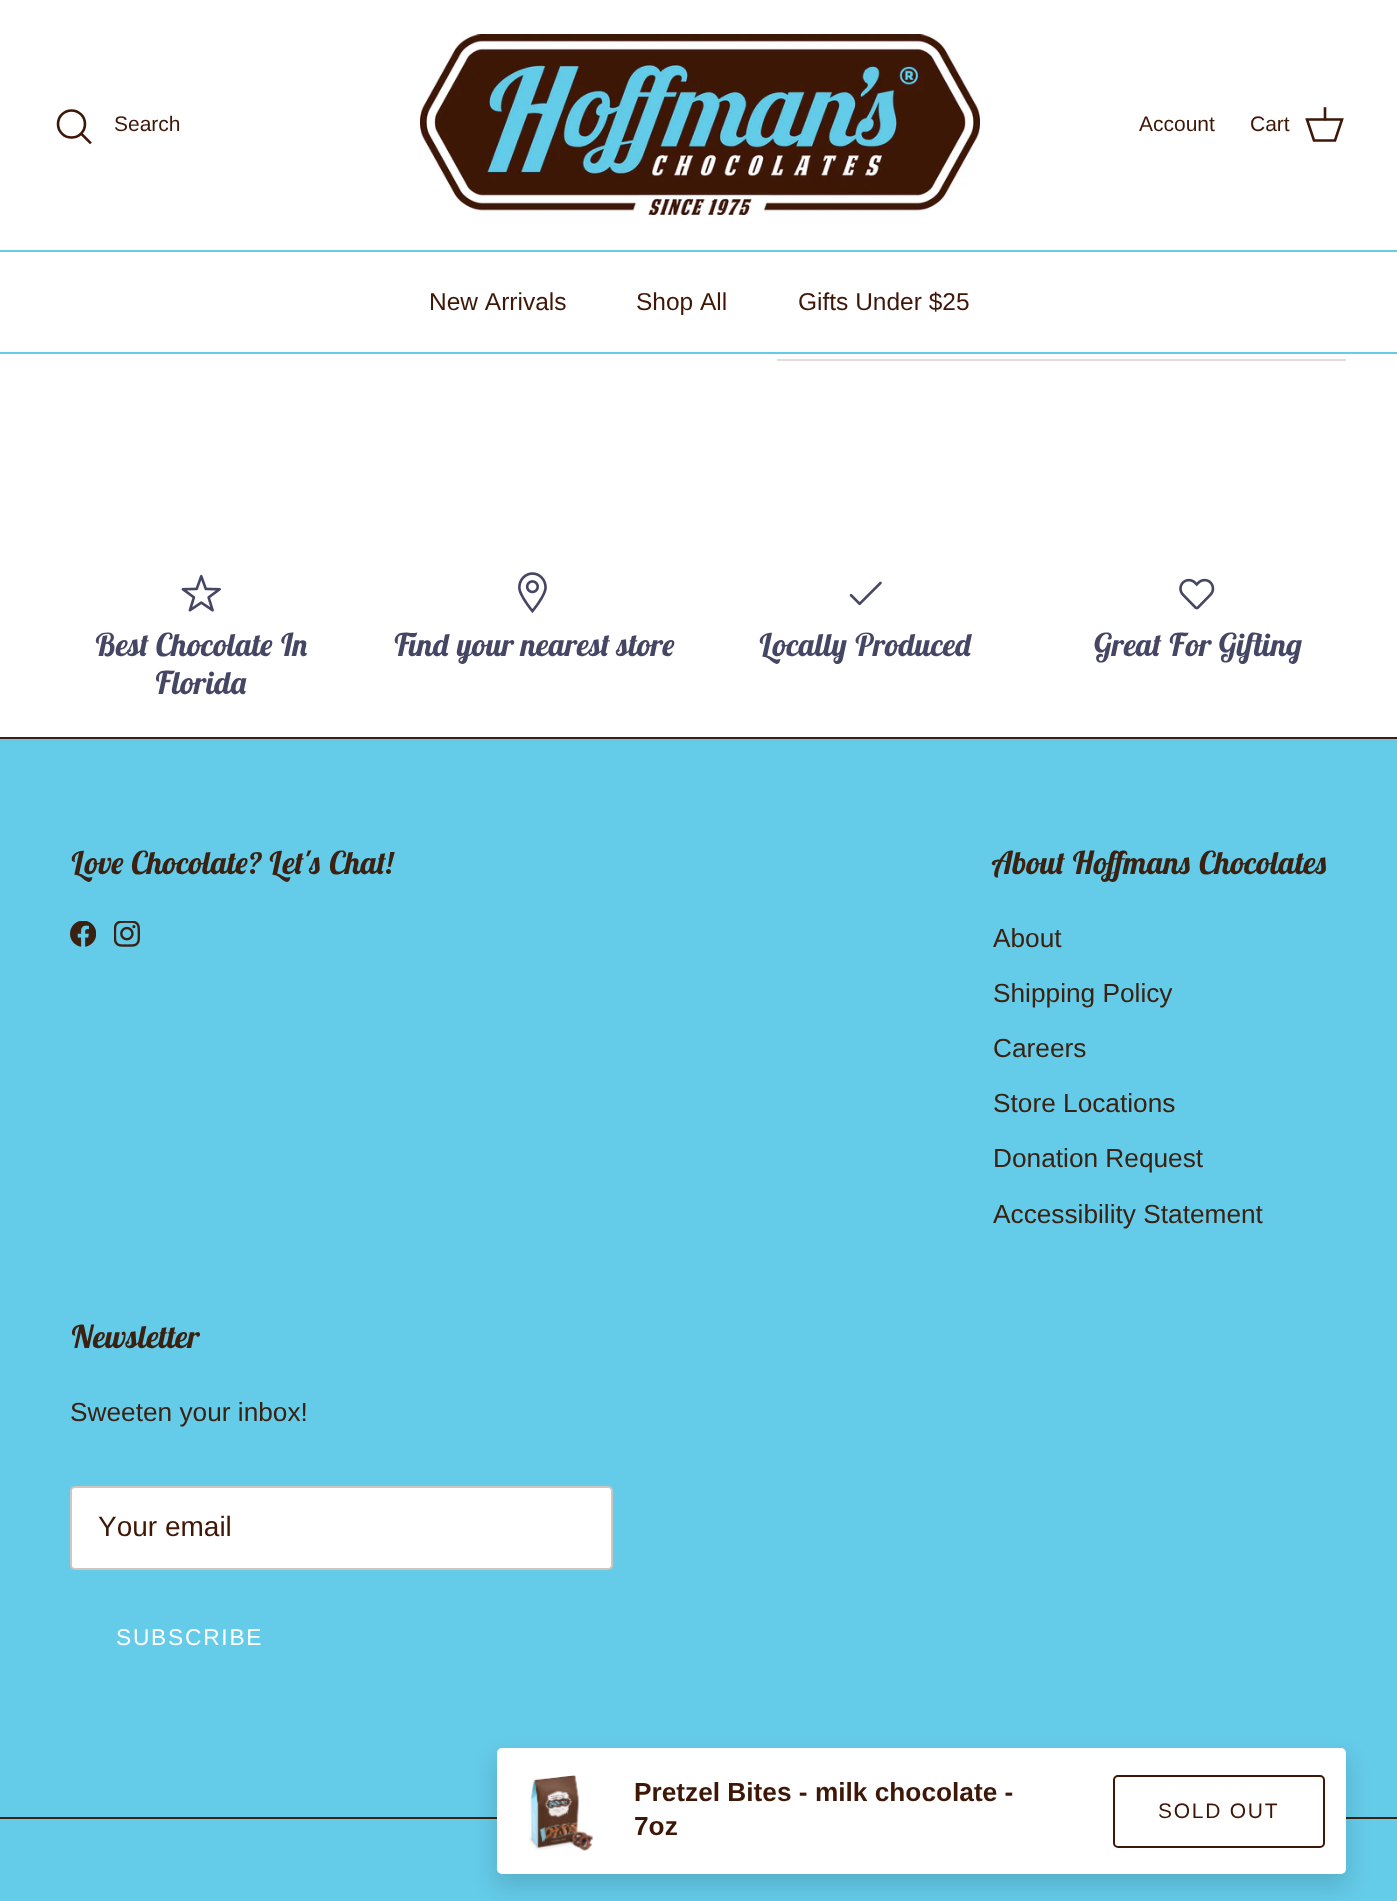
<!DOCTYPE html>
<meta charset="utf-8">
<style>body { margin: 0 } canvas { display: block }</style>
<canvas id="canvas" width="1397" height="1901"></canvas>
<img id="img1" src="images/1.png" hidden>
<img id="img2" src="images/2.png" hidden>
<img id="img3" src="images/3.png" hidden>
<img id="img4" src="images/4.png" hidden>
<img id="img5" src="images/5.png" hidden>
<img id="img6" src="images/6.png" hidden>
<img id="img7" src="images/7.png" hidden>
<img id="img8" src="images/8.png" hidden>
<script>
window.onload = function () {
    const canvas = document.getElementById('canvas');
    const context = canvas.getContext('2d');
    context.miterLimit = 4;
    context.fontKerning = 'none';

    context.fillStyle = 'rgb(255, 255, 255)';
    context.fillRect(0, 0, 1397, 1901);
    context.fillStyle = 'rgb(100, 203, 232)';
    context.fillRect(0, 250, 1397, 2);
    context.beginPath();
    context.arc(71.5, 124, 13.5, 0, 2 * Math.PI);
    context.strokeStyle = 'rgb(62, 23, 7)';
    context.lineWidth = 2.6;
    context.stroke();
    context.beginPath();
    context.moveTo(82, 134.5);
    context.lineTo(90, 142.5);
    context.lineCap = 'square';
    context.stroke();
    context.drawImage(document.getElementById('img1'), 420, 34, 560, 181);
    context.beginPath();
    context.moveTo(1307, 119.5);
    context.lineTo(1342, 119.5);
    context.lineTo(1335, 140.5);
    context.lineTo(1314, 140.5);
    context.closePath();
    context.lineCap = 'butt';
    context.stroke();
    context.beginPath();
    context.moveTo(1325, 119);
    context.lineTo(1325, 108.5);
    context.lineCap = 'square';
    context.stroke();
    context.fillRect(0, 352, 1397, 2);
    context.drawImage(document.getElementById('img2'), 181, 574, 40, 38);
    context.drawImage(document.getElementById('img3'), 518, 572, 29, 42);
    context.drawImage(document.getElementById('img4'), 849, 581, 33, 25);
    context.drawImage(document.getElementById('img5'), 1179, 578, 36, 32);
    context.fillRect(0, 739, 1397, 1162);
    context.fillStyle = 'rgb(58, 33, 18)';
    context.fillRect(0, 737, 1397, 2);
    context.drawImage(document.getElementById('img6'), 70, 921, 26, 26);
    context.drawImage(document.getElementById('img7'), 114, 921, 26, 26);
    context.fillStyle = 'rgb(255, 255, 255)';
    context.beginPath();
    context.roundRect(71, 1487, 541, 82, 4);
    context.fill();
    context.strokeStyle = 'rgb(207, 197, 193)';
    context.lineWidth = 2;
    context.stroke();
    context.fillStyle = 'rgb(58, 33, 18)';
    context.fillRect(0, 1817, 1397, 2);
    context.fillStyle = 'rgb(226, 220, 218)';
    context.fillRect(777, 359, 569, 2);
    context.fillStyle = 'rgba(0, 0, 0, 0.12)';
    context.filter = 'blur(10.5px)';
    context.beginPath();
    context.roundRect(495, 1757, 853, 130, 7);
    context.fill();
    context.filter = 'none';
    context.fillStyle = 'rgb(255, 255, 255)';
    context.beginPath();
    context.roundRect(497, 1748, 849, 126, 5);
    context.fill();
    context.drawImage(document.getElementById('img8'), 529, 1775, 65, 76);
    context.beginPath();
    context.roundRect(1114, 1776, 210, 71, 4);
    context.strokeStyle = 'rgb(62, 23, 7)';
    context.stroke();
    context.font = '21px Liberation Sans';
    context.fillStyle = 'rgb(62, 23, 7)';
    context.fillText('Search', 114, 131);
    context.fillText('Account', 1139, 131);
    context.fillText('Cart', 1250, 131);
    context.font = '24.5px Liberation Sans';
    context.fillText('New Arrivals', 429, 310);
    context.fillText('Shop All', 636, 310);
    context.fillText('Gifts Under $25', 798, 310);
    context.font = 'italic bold 31.5px Lobster Two';
    context.fillStyle = 'rgb(69, 69, 100)';
    context.fillText('Best Chocolate In', 94, 656);
    context.fillText('Florida', 154, 694);
    context.fillText('Find your nearest store', 391, 656);
    context.fillText('Locally Produced', 758, 656);
    context.fillText('Great For Gifting', 1093, 656);
    context.fillStyle = 'rgb(58, 33, 18)';
    context.fillText('Love Chocolate? Let\'s Chat!', 70, 874);
    context.fillText('About Hoffmans Chocolates', 993, 874);
    context.font = '26.25px Liberation Sans';
    context.fillText('About', 993, 947);
    context.fillText('Shipping Policy', 993, 1002);
    context.fillText('Careers', 993, 1057);
    context.fillText('Store Locations', 993, 1112);
    context.fillText('Donation Request', 993, 1167);
    context.fillText('Accessibility Statement', 993, 1223);
    context.font = 'italic bold 31.5px Lobster Two';
    context.fillText('Newsletter', 70, 1348);
    context.font = '26.25px Liberation Sans';
    context.fillText('Sweeten your inbox!', 70, 1421);
    context.font = '28px Liberation Sans';
    context.fillStyle = 'rgb(62, 23, 7)';
    context.fillText('Your email', 98, 1536);
    context.letterSpacing = '1.75px';
    context.font = '22.75px Liberation Sans';
    context.fillStyle = 'rgb(255, 255, 255)';
    context.fillText('SUBSCRIBE', 116, 1645);
    context.letterSpacing = '0px';
    context.font = 'bold 26.25px Liberation Sans';
    context.fillStyle = 'rgb(62, 23, 7)';
    context.fillText('Pretzel Bites - milk chocolate -', 634, 1801);
    context.fillText('7oz', 634, 1835);
    context.letterSpacing = '1.75px';
    context.font = '21px Liberation Sans';
    context.fillText('SOLD OUT', 1158, 1818);
};
</script>
